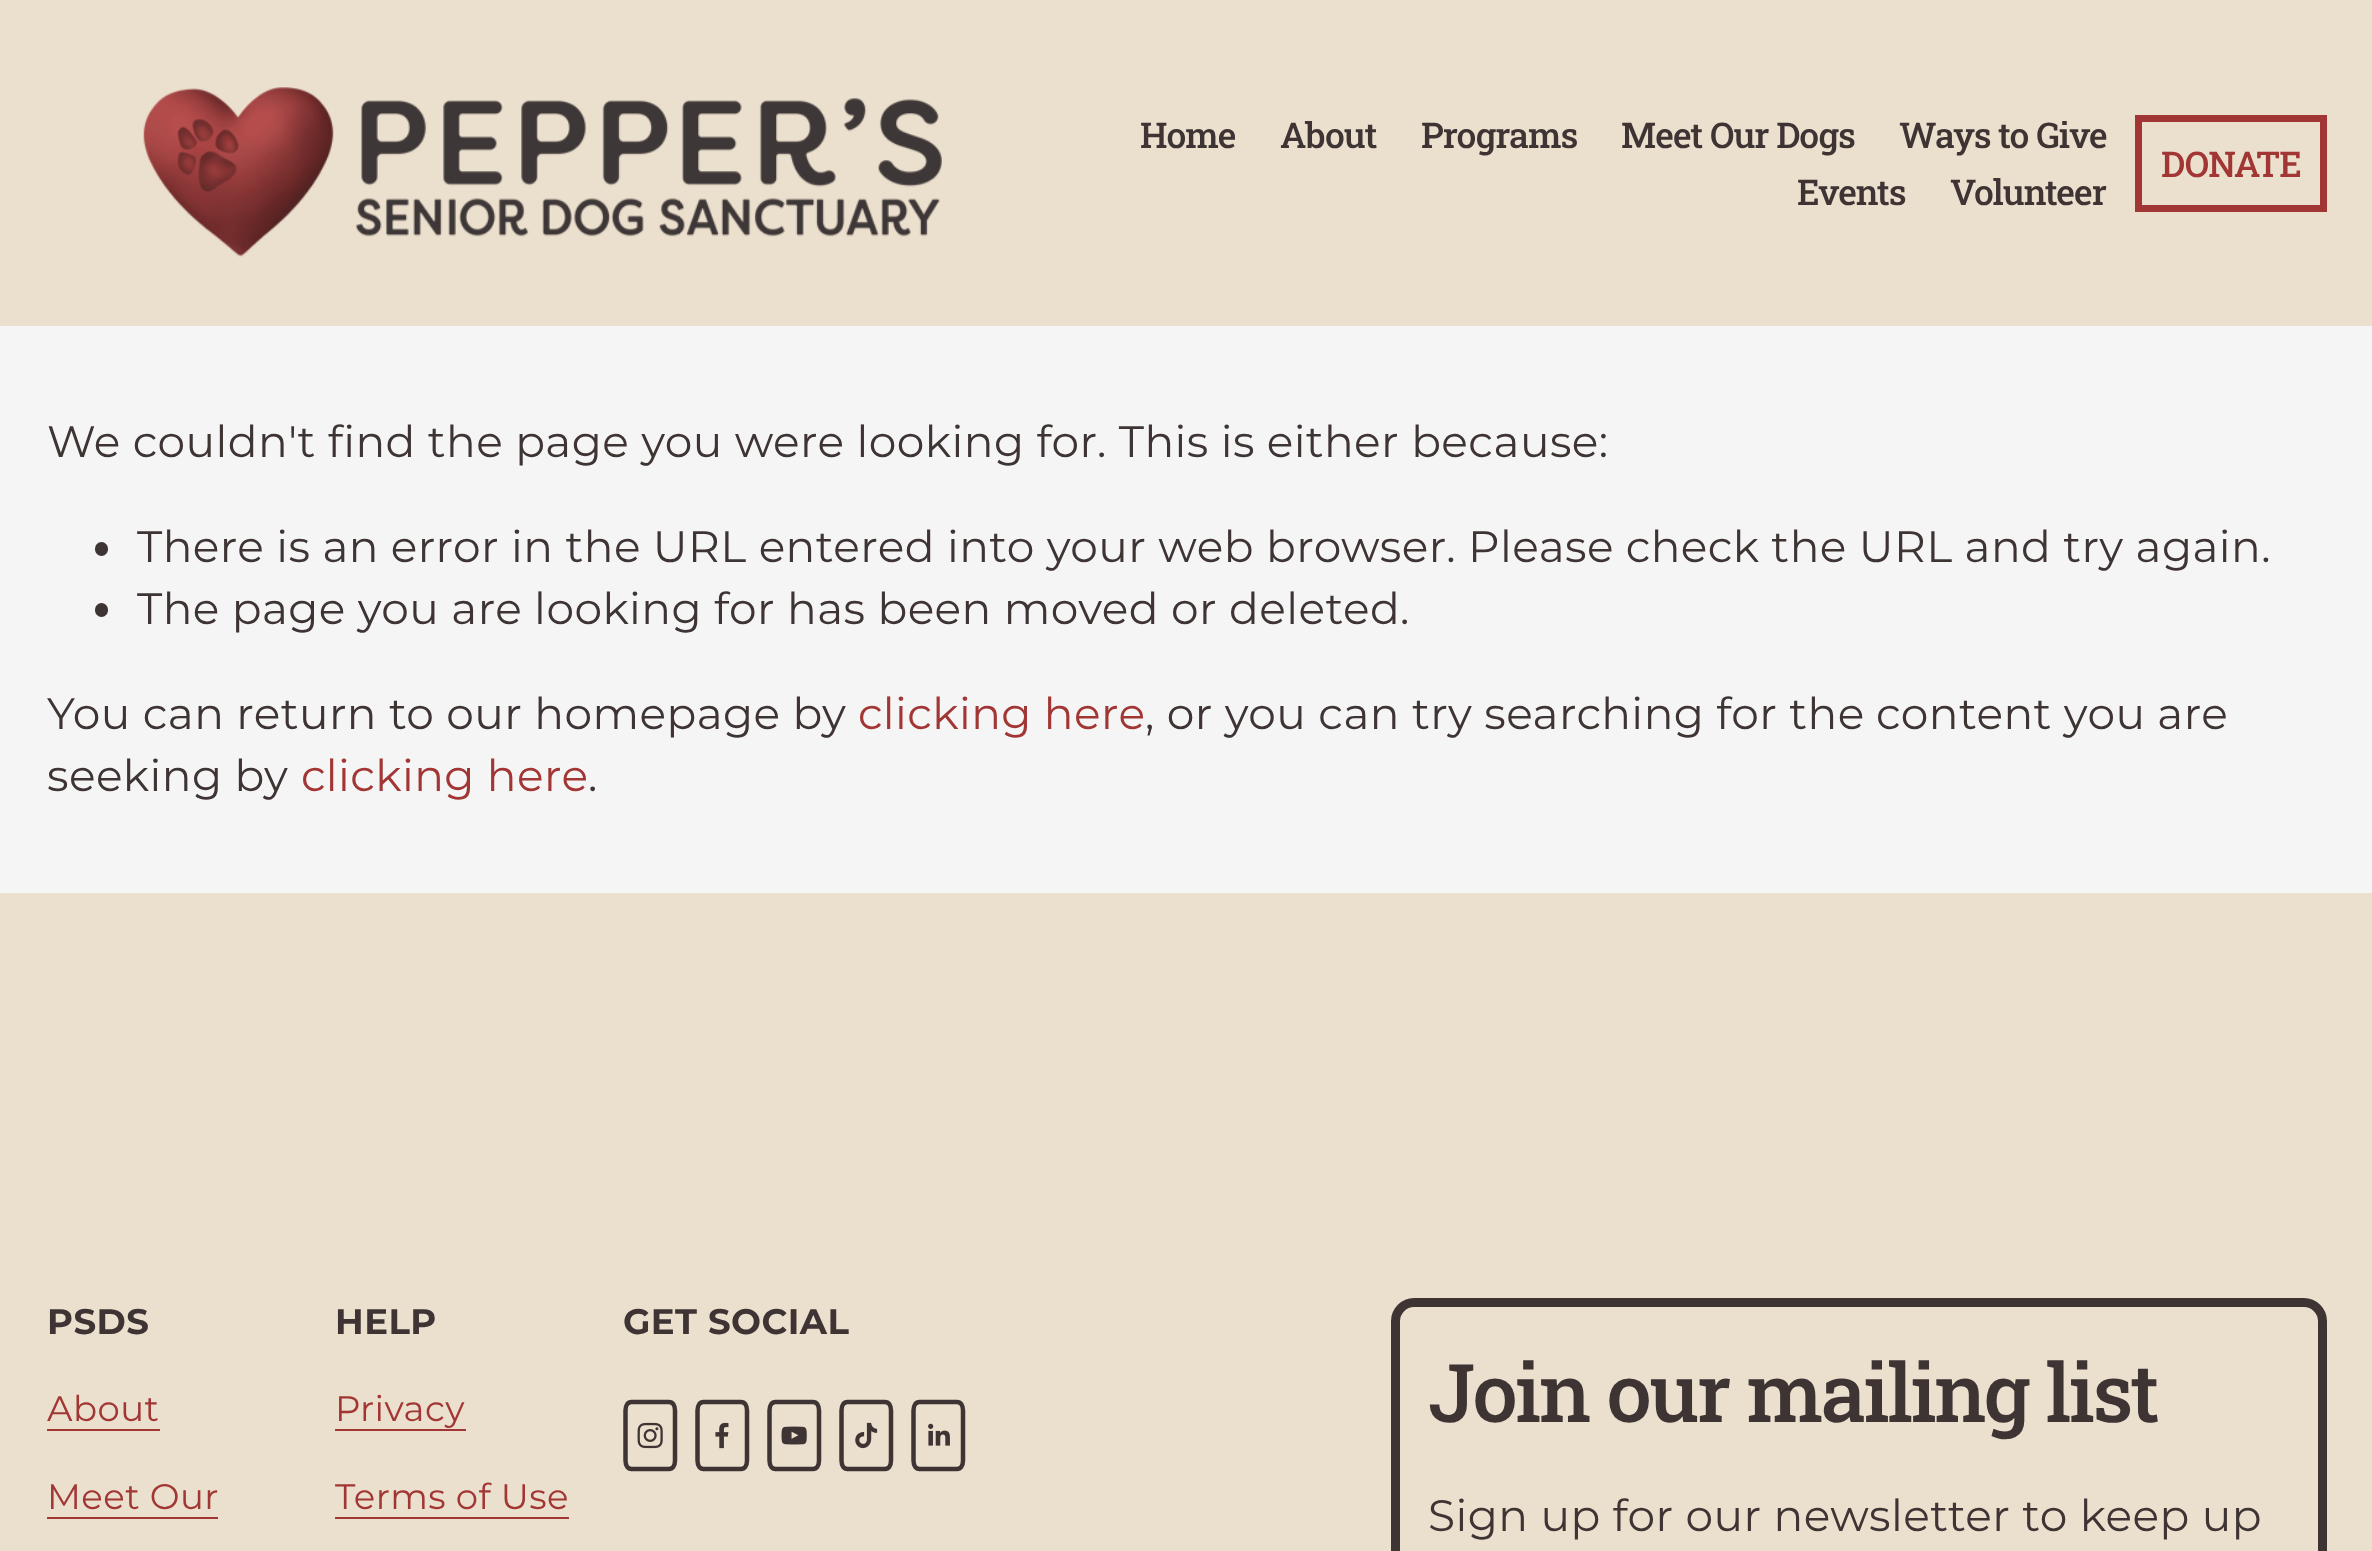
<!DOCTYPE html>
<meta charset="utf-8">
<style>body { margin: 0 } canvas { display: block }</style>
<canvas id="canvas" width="2372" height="1551"></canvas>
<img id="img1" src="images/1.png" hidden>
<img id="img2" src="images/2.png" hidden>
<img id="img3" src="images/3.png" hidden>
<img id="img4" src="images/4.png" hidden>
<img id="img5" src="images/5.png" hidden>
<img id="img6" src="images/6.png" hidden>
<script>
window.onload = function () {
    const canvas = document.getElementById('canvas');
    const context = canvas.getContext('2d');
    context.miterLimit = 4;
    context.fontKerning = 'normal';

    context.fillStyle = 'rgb(245, 245, 245)';
    context.fillRect(0, 0, 2372, 1551);
    context.fillStyle = 'rgb(235, 223, 205)';
    context.fillRect(0, 0, 2372, 326);
    context.drawImage(document.getElementById('img1'), 143, 87, 799, 170);
    context.strokeStyle = 'rgb(161, 54, 52)';
    context.lineWidth = 7;
    context.strokeRect(2138.5, 118.5, 185, 90);
    context.fillStyle = 'rgb(62, 52, 52)';
    context.beginPath();
    context.roundRect(95, 542, 13, 14, 6.5);
    context.fill();
    context.beginPath();
    context.roundRect(95, 603, 13, 14, 6.5);
    context.fill();
    context.fillStyle = 'rgb(235, 223, 205)';
    context.fillRect(0, 893, 2372, 658);
    context.fillStyle = 'rgb(161, 54, 52)';
    context.fillRect(47, 1429, 113, 2);
    context.fillRect(47, 1517, 171, 2);
    context.fillRect(335, 1429, 131, 2);
    context.fillRect(335, 1517, 234, 2);
    context.beginPath();
    context.moveTo(1414, 1302.5);
    context.lineTo(2304, 1302.5);
    context.bezierCurveTo(2314, 1302.5, 2322.5, 1311, 2322.5, 1321);
    context.lineTo(2322.5, 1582);
    context.bezierCurveTo(2322.5, 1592, 2314, 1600.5, 2304, 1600.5);
    context.lineTo(1436, 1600.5);
    context.bezierCurveTo(1413.5, 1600.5, 1395.5, 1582.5, 1395.5, 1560);
    context.lineTo(1395.5, 1321);
    context.bezierCurveTo(1395.5, 1311, 1404, 1302.5, 1414, 1302.5);
    context.closePath();
    context.strokeStyle = 'rgb(62, 52, 52)';
    context.lineWidth = 9;
    context.stroke();
    context.beginPath();
    context.moveTo(631.5, 1402);
    context.lineTo(669, 1402);
    context.bezierCurveTo(672.5, 1402, 675, 1405.5, 675, 1410.5);
    context.lineTo(675, 1460.5);
    context.bezierCurveTo(675, 1465.5, 672.5, 1469, 669, 1469);
    context.lineTo(631.5, 1469);
    context.bezierCurveTo(628, 1469, 625.5, 1465.5, 625.5, 1460.5);
    context.lineTo(625.5, 1410.5);
    context.bezierCurveTo(625.5, 1405.5, 628, 1402, 631.5, 1402);
    context.closePath();
    context.lineWidth = 4.5;
    context.stroke();
    context.drawImage(document.getElementById('img2'), 637, 1422, 26, 27);
    context.beginPath();
    context.moveTo(703.5, 1402);
    context.lineTo(741, 1402);
    context.bezierCurveTo(744.5, 1402, 747, 1405.5, 747, 1410.5);
    context.lineTo(747, 1460.5);
    context.bezierCurveTo(747, 1465.5, 744.5, 1469, 741, 1469);
    context.lineTo(703.5, 1469);
    context.bezierCurveTo(700, 1469, 697.5, 1465.5, 697.5, 1460.5);
    context.lineTo(697.5, 1410.5);
    context.bezierCurveTo(697.5, 1405.5, 700, 1402, 703.5, 1402);
    context.closePath();
    context.stroke();
    context.drawImage(document.getElementById('img3'), 715, 1422, 14, 27);
    context.beginPath();
    context.moveTo(775.5, 1402);
    context.lineTo(813, 1402);
    context.bezierCurveTo(816.5, 1402, 819, 1405.5, 819, 1410.5);
    context.lineTo(819, 1460.5);
    context.bezierCurveTo(819, 1465.5, 816.5, 1469, 813, 1469);
    context.lineTo(775.5, 1469);
    context.bezierCurveTo(772, 1469, 769.5, 1465.5, 769.5, 1460.5);
    context.lineTo(769.5, 1410.5);
    context.bezierCurveTo(769.5, 1405.5, 772, 1402, 775.5, 1402);
    context.closePath();
    context.stroke();
    context.drawImage(document.getElementById('img4'), 781, 1426, 26, 19);
    context.beginPath();
    context.moveTo(847.5, 1402);
    context.lineTo(885, 1402);
    context.bezierCurveTo(888.5, 1402, 891, 1405.5, 891, 1410.5);
    context.lineTo(891, 1460.5);
    context.bezierCurveTo(891, 1465.5, 888.5, 1469, 885, 1469);
    context.lineTo(847.5, 1469);
    context.bezierCurveTo(844, 1469, 841.5, 1465.5, 841.5, 1460.5);
    context.lineTo(841.5, 1410.5);
    context.bezierCurveTo(841.5, 1405.5, 844, 1402, 847.5, 1402);
    context.closePath();
    context.stroke();
    context.drawImage(document.getElementById('img5'), 855, 1422, 23, 27);
    context.beginPath();
    context.moveTo(919.5, 1402);
    context.lineTo(957, 1402);
    context.bezierCurveTo(960.5, 1402, 963, 1405.5, 963, 1410.5);
    context.lineTo(963, 1460.5);
    context.bezierCurveTo(963, 1465.5, 960.5, 1469, 957, 1469);
    context.lineTo(919.5, 1469);
    context.bezierCurveTo(916, 1469, 913.5, 1465.5, 913.5, 1460.5);
    context.lineTo(913.5, 1410.5);
    context.bezierCurveTo(913.5, 1405.5, 916, 1402, 919.5, 1402);
    context.closePath();
    context.stroke();
    context.drawImage(document.getElementById('img6'), 928, 1423, 22, 23);
    context.letterSpacing = '-1px';
    context.font = '500 35.5px Roboto Slab';
    context.fillStyle = 'rgb(62, 52, 52)';
    context.fillText('Home', 1140, 148);
    context.fillText('About', 1280, 148);
    context.fillText('Programs', 1421, 148);
    context.fillText('Meet Our Dogs', 1621, 148);
    context.fillText('Ways to Give', 1899, 148);
    context.fillText('Events', 1797, 205);
    context.fillText('Volunteer', 1950, 205);
    context.fillStyle = 'rgb(161, 54, 52)';
    context.fillText('DONATE', 2161, 177);
    context.letterSpacing = '0.45px';
    context.font = '43.95px Montserrat';
    context.fillStyle = 'rgb(62, 52, 52)';
    context.fillText('We couldn\'t find the page you were looking for. This is either because:', 47, 457);
    context.fillText('There is an error in the URL entered into your web browser. Please check the URL and try again.', 137, 562);
    context.fillText('The page you are looking for has been moved or deleted.', 137, 624);
    context.fillText('You can return to our homepage by', 47, 729);
    context.fillStyle = 'rgb(161, 54, 52)';
    context.fillText('clicking here', 858, 729);
    context.fillStyle = 'rgb(62, 52, 52)';
    context.fillText(', or you can try searching for the', 1145, 729);
    context.fillText('content you are', 1876, 729);
    context.fillText('seeking by', 47, 791);
    context.fillStyle = 'rgb(161, 54, 52)';
    context.fillText('clicking here', 301, 791);
    context.fillStyle = 'rgb(62, 52, 52)';
    context.fillText('.', 588, 791);
    context.font = 'bold 35.5px Montserrat';
    context.fillText('PSDS', 47, 1334);
    context.font = '35.5px Montserrat';
    context.fillStyle = 'rgb(161, 54, 52)';
    context.fillText('About', 47, 1421);
    context.fillText('Meet Our', 47, 1509);
    context.font = 'bold 35.5px Montserrat';
    context.fillStyle = 'rgb(62, 52, 52)';
    context.fillText('HELP', 335, 1334);
    context.font = '35.5px Montserrat';
    context.fillStyle = 'rgb(161, 54, 52)';
    context.fillText('Privacy', 335, 1421);
    context.fillText('Terms of Use', 335, 1509);
    context.font = 'bold 35.5px Montserrat';
    context.fillStyle = 'rgb(62, 52, 52)';
    context.fillText('GET SOCIAL', 623, 1334);
    context.letterSpacing = '-2.4px';
    context.font = '500 81px Roboto Slab';
    context.fillText('Join our mailing list', 1428, 1422);
    context.letterSpacing = '0.45px';
    context.font = '43.95px Montserrat';
    context.fillText('Sign up for our newsletter to keep up', 1428, 1531);
};
</script>
